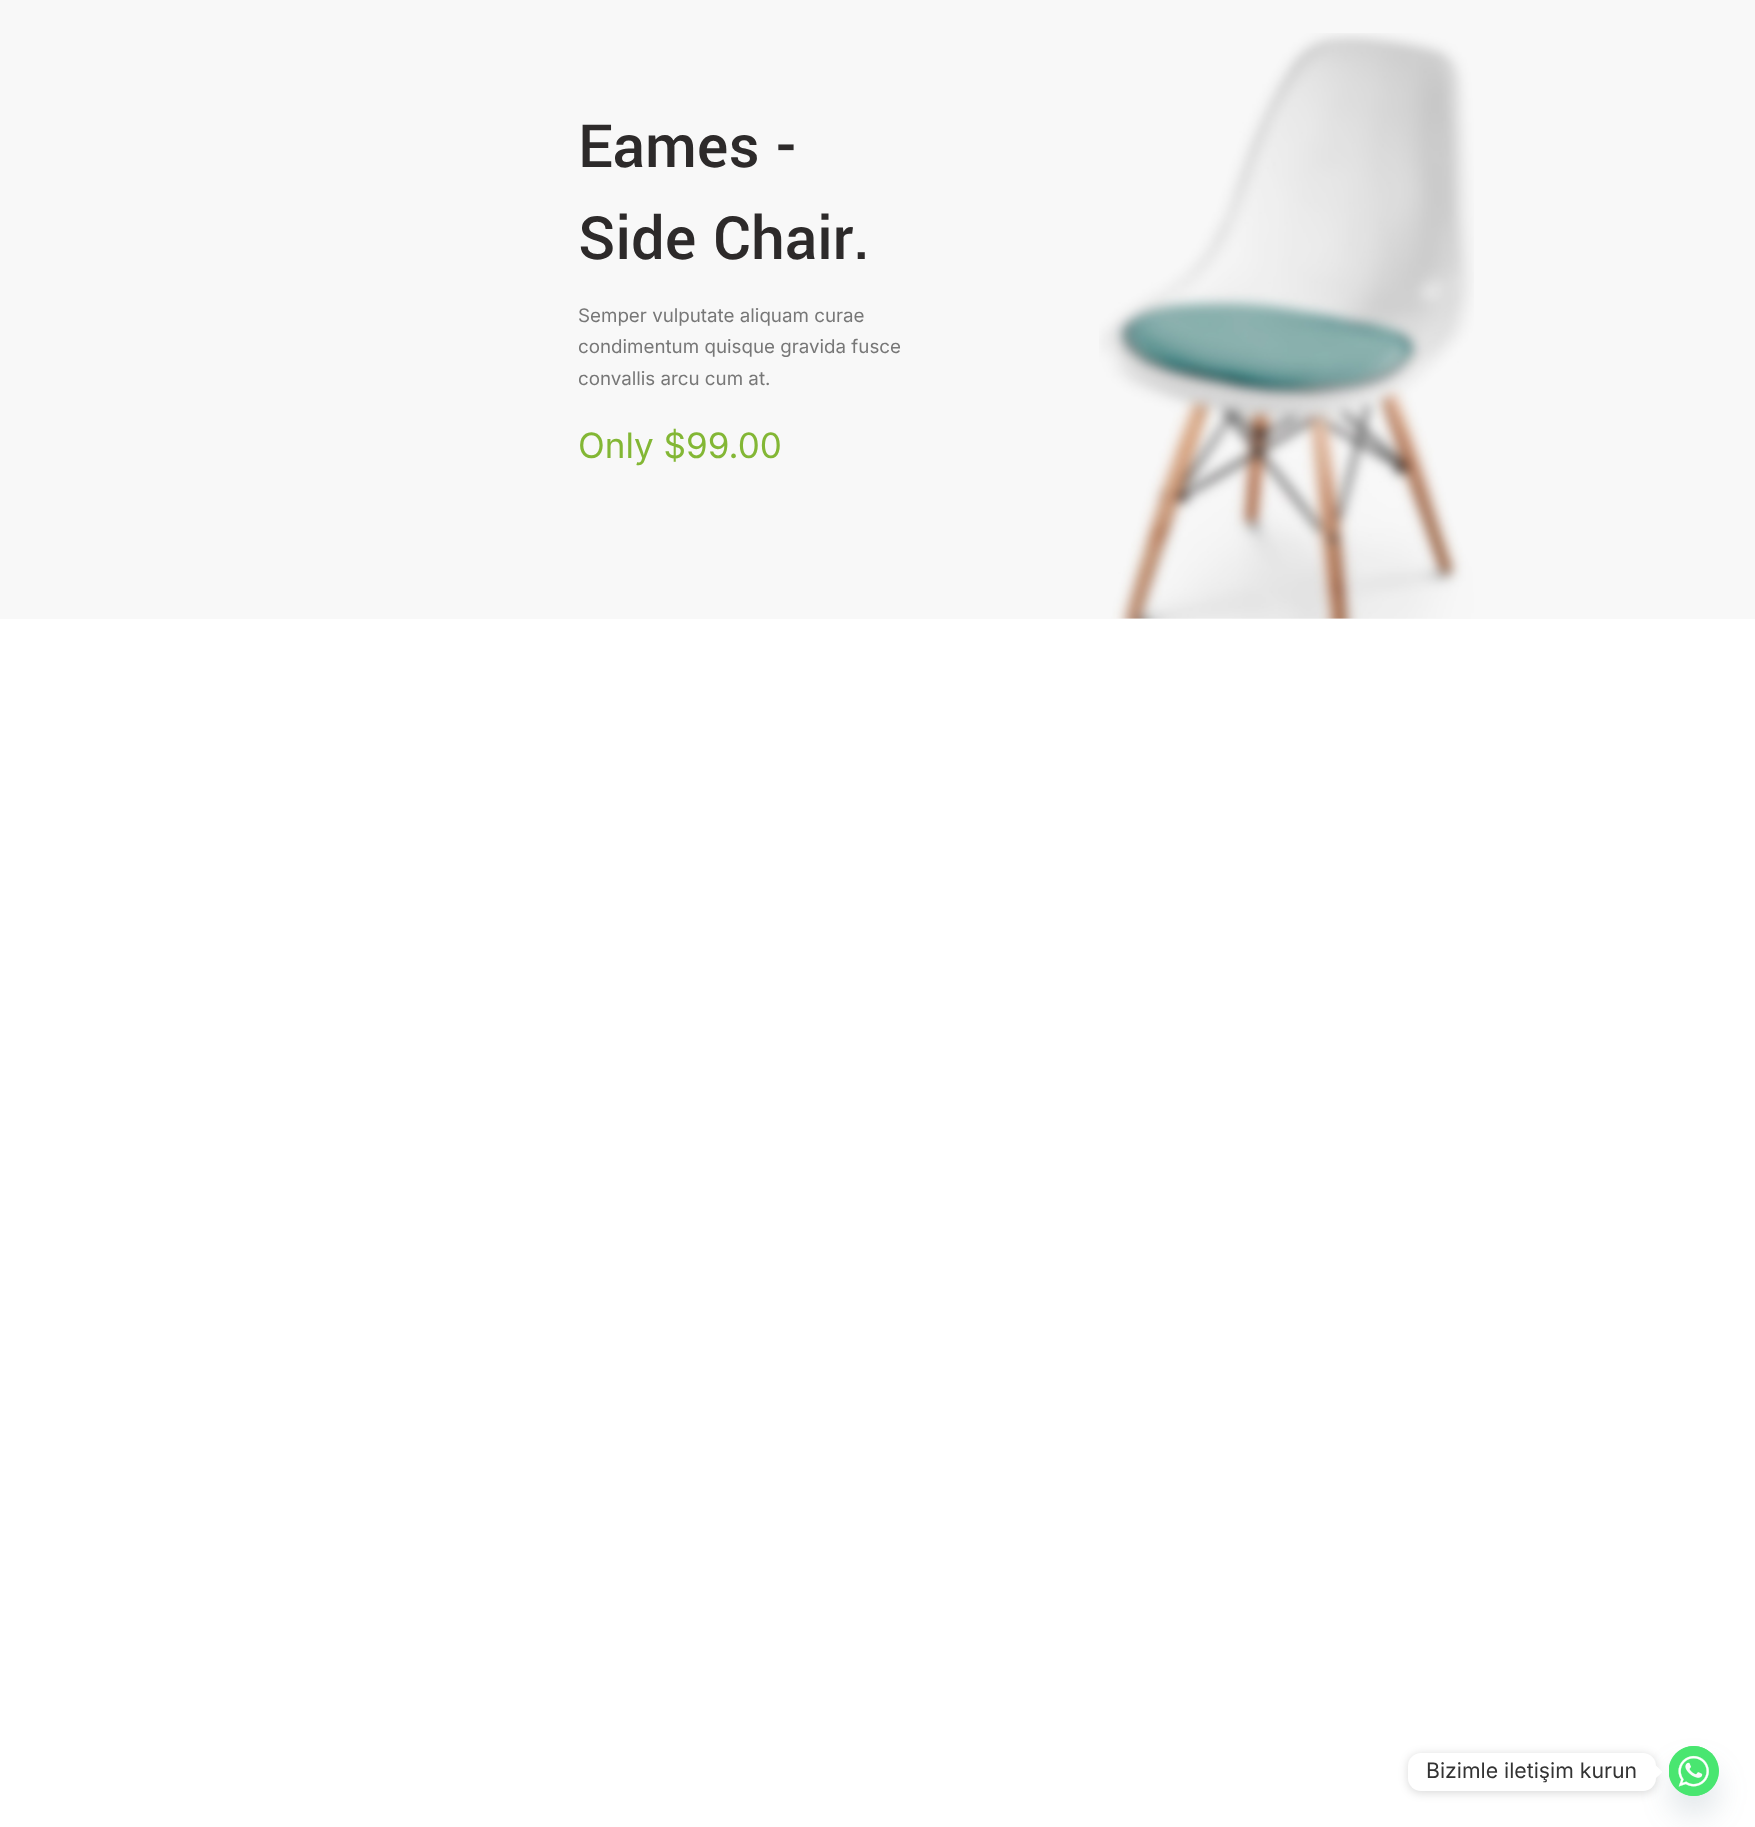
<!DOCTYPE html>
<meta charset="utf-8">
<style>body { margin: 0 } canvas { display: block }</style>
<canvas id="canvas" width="1755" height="1827"></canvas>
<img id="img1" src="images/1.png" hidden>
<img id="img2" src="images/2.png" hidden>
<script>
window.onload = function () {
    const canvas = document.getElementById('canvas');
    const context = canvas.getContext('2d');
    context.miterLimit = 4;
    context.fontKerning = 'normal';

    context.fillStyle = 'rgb(255, 255, 255)';
    context.fillRect(0, 0, 1755, 1827);
    context.fillStyle = 'rgb(248, 248, 248)';
    context.fillRect(0, 0, 1755, 619);
    context.drawImage(document.getElementById('img1'), 1099, 33, 375, 586);
    context.fillStyle = 'rgba(73, 104, 126, 0.16)';
    context.filter = 'blur(15px)';
    context.beginPath();
    context.roundRect(1669, 1766, 50, 50, 25);
    context.fill();
    context.filter = 'none';
    context.fillStyle = 'rgb(73, 230, 112)';
    context.beginPath();
    context.arc(1694, 1771, 25, 0, 2 * Math.PI);
    context.fill();
    context.drawImage(document.getElementById('img2'), 1669, 1746, 50, 50);
    context.fillStyle = 'rgba(0, 0, 0, 0.15)';
    context.filter = 'blur(5px)';
    context.beginPath();
    context.roundRect(1408, 1754, 248, 39, 13);
    context.fill();
    context.filter = 'none';
    context.fillStyle = 'rgb(255, 255, 255)';
    context.beginPath();
    context.roundRect(1408, 1753, 248, 38, 13);
    context.fill();
    context.beginPath();
    context.moveTo(1656, 1778);
    context.lineTo(1656, 1765.5);
    context.lineTo(1662.5, 1772);
    context.closePath();
    context.fill();
    context.font = '500 66.25px Yantramanav';
    context.fillStyle = 'rgb(45, 42, 42)';
    context.fillText('Eames -', 578, 167);
    context.fillText('Side Chair.', 578, 259);
    context.font = '18.75px Inter';
    context.fillStyle = 'rgb(119, 119, 119)';
    context.fillText('Semper vulputate aliquam curae', 578, 322);
    context.fillText('condimentum quisque gravida fusce', 578, 353);
    context.fillText('convallis arcu cum at.', 578, 385);
    context.font = '35px Inter';
    context.fillStyle = 'rgb(131, 183, 53)';
    context.fillText('Only $99.00', 578, 458);
    context.font = '21.25px Inter';
    context.fillStyle = 'rgb(51, 51, 51)';
    context.fillText('Bizimle iletişim kurun', 1426, 1778);
};
</script>
